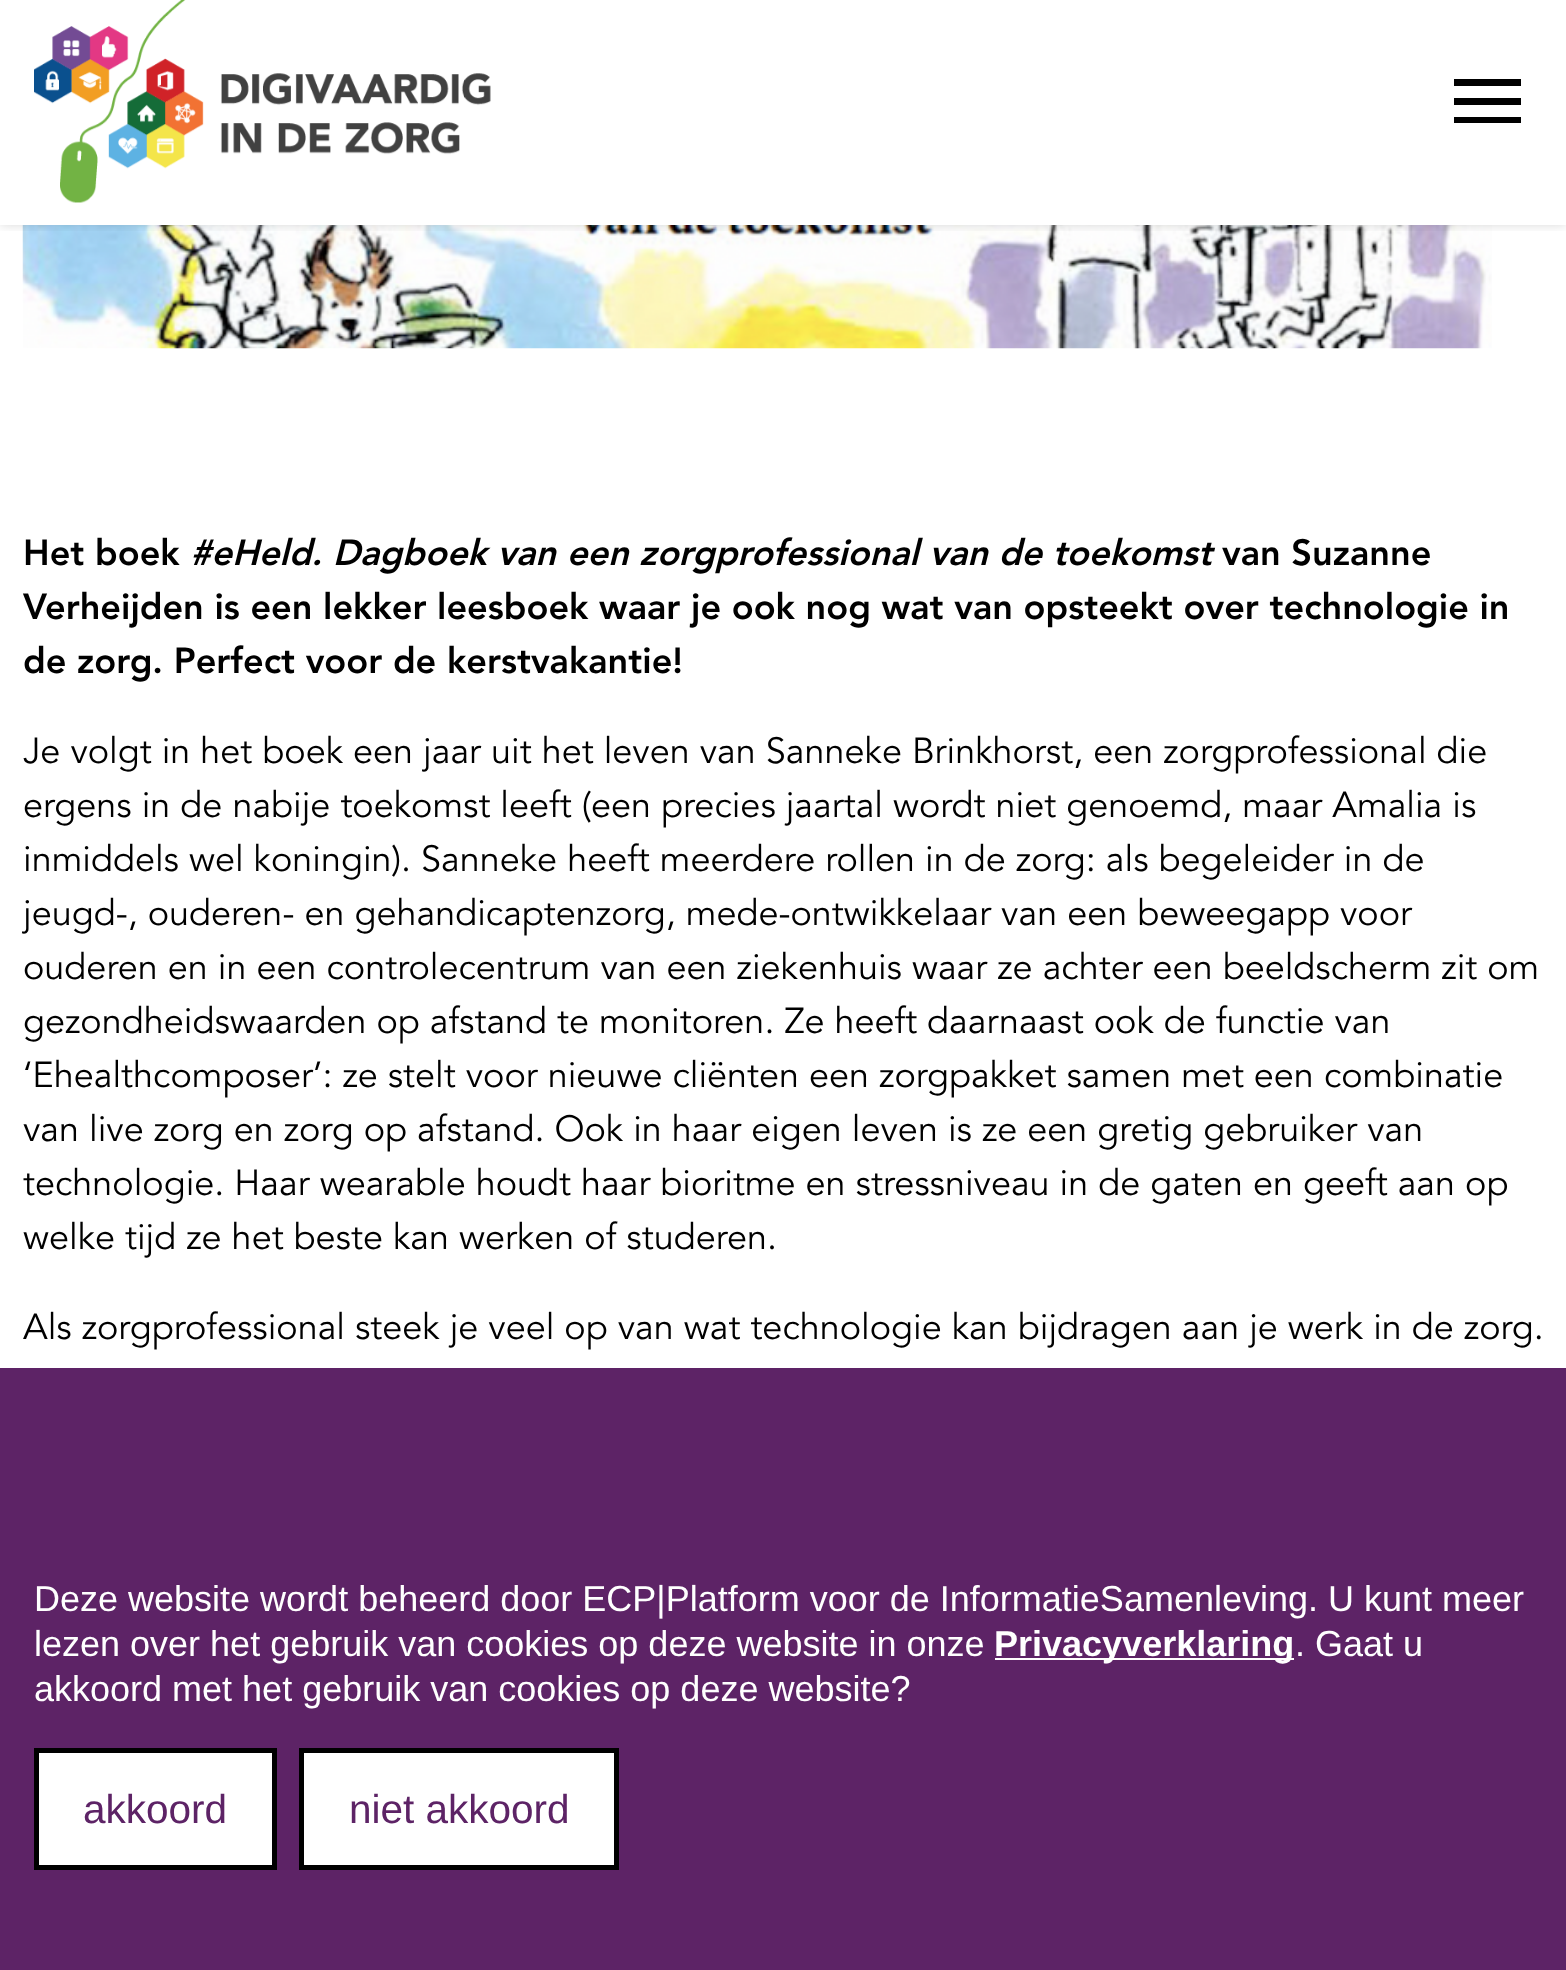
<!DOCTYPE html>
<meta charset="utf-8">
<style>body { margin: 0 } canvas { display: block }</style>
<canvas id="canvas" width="1566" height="1970"></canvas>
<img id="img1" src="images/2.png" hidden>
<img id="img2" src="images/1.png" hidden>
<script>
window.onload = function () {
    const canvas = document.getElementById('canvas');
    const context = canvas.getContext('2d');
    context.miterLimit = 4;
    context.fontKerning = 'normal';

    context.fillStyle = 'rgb(255, 255, 255)';
    context.fillRect(0, 0, 1566, 1970);
    context.drawImage(document.getElementById('img1'), 22, 225, 1470, 124);
    context.save();
    context.beginPath();
    context.rect(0, 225, 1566, 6);
    context.clip();
    context.fillStyle = 'rgba(0, 0, 0, 0.15)';
    context.filter = 'blur(5.5px)';
    context.beginPath();
    context.rect(0, 0, 1566, 225);
    context.fill();
    context.filter = 'none';
    context.restore();
    context.drawImage(document.getElementById('img2'), 34, 0, 457, 203);
    context.fillStyle = 'rgb(0, 0, 0)';
    context.beginPath();
    context.moveTo(1454, 79);
    context.lineTo(1521, 79);
    context.lineTo(1521, 86);
    context.lineTo(1454, 86);
    context.closePath();
    context.moveTo(1454, 98);
    context.lineTo(1521, 98);
    context.lineTo(1521, 105);
    context.lineTo(1454, 105);
    context.closePath();
    context.moveTo(1454, 117);
    context.lineTo(1521, 117);
    context.lineTo(1521, 123);
    context.lineTo(1454, 123);
    context.closePath();
    context.fill();
    context.fillStyle = 'rgb(93, 35, 102)';
    context.fillRect(0, 1368, 1566, 602);
    context.fillStyle = 'rgb(255, 255, 255)';
    context.fillRect(995, 1658, 299, 2);
    context.beginPath();
    context.rect(36.5, 1750.5, 238, 117);
    context.fill();
    context.strokeStyle = 'rgb(0, 0, 0)';
    context.lineWidth = 5;
    context.stroke();
    context.beginPath();
    context.rect(301.5, 1750.5, 315, 117);
    context.fill();
    context.stroke();
    context.font = '900 36px Avenir';
    context.fillStyle = 'rgb(0, 0, 0)';
    context.fillText('Het boek', 23, 565);
    context.font = 'italic 900 36px Avenir';
    context.fillText('#eHeld. Dagboek van een zorgprofessional van de toekomst', 190, 565);
    context.font = '900 36px Avenir';
    context.fillText('van Suzanne', 1222, 565);
    context.fillText('Verheijden is een lekker leesboek waar je ook nog wat van opsteekt over technologie in', 23, 619);
    context.fillText('de zorg. Perfect voor de kerstvakantie!', 23, 673);
    context.font = '36px Avenir';
    context.fillText('Je volgt in het boek een jaar uit het leven van Sanneke Brinkhorst, een zorgprofessional die', 23, 763);
    context.fillText('ergens in de nabije toekomst leeft (een precies jaartal wordt niet genoemd, maar Amalia is', 23, 817);
    context.fillText('inmiddels wel koningin). Sanneke heeft meerdere rollen in de zorg: als begeleider in de', 23, 871);
    context.fillText('jeugd-, ouderen- en gehandicaptenzorg, mede-ontwikkelaar van een beweegapp voor', 23, 925);
    context.fillText('ouderen en in een controlecentrum van een ziekenhuis waar ze achter een beeldscherm zit om', 23, 979);
    context.fillText('gezondheidswaarden op afstand te monitoren. Ze heeft daarnaast ook de functie van', 23, 1033);
    context.fillText('‘Ehealthcomposer’: ze stelt voor nieuwe cliënten een zorgpakket samen met een combinatie', 23, 1087);
    context.fillText('van live zorg en zorg op afstand. Ook in haar eigen leven is ze een gretig gebruiker van', 23, 1141);
    context.fillText('technologie. Haar wearable houdt haar bioritme en stressniveau in de gaten en geeft aan op', 23, 1195);
    context.fillText('welke tijd ze het beste kan werken of studeren.', 23, 1249);
    context.fillText('Als zorgprofessional steek je veel op van wat technologie kan bijdragen aan je werk in de zorg.', 23, 1339);
    context.font = '36px Liberation Sans';
    context.fillStyle = 'rgb(255, 255, 255)';
    context.fillText('Deze website wordt beheerd door ECP|Platform voor de InformatieSamenleving. U kunt meer', 34, 1611);
    context.fillText('lezen over het gebruik van cookies op deze website in onze', 34, 1656);
    context.font = 'bold 36px Liberation Sans';
    context.fillText('Privacyverklaring', 994, 1656);
    context.font = '36px Liberation Sans';
    context.fillText('. Gaat u', 1295, 1656);
    context.fillText('akkoord met het gebruik van cookies op deze website?', 34, 1701);
    context.font = '40.5px Liberation Sans';
    context.fillStyle = 'rgb(93, 35, 102)';
    context.fillText('akkoord', 83, 1823);
    context.fillText('niet akkoord', 349, 1823);
};
</script>
